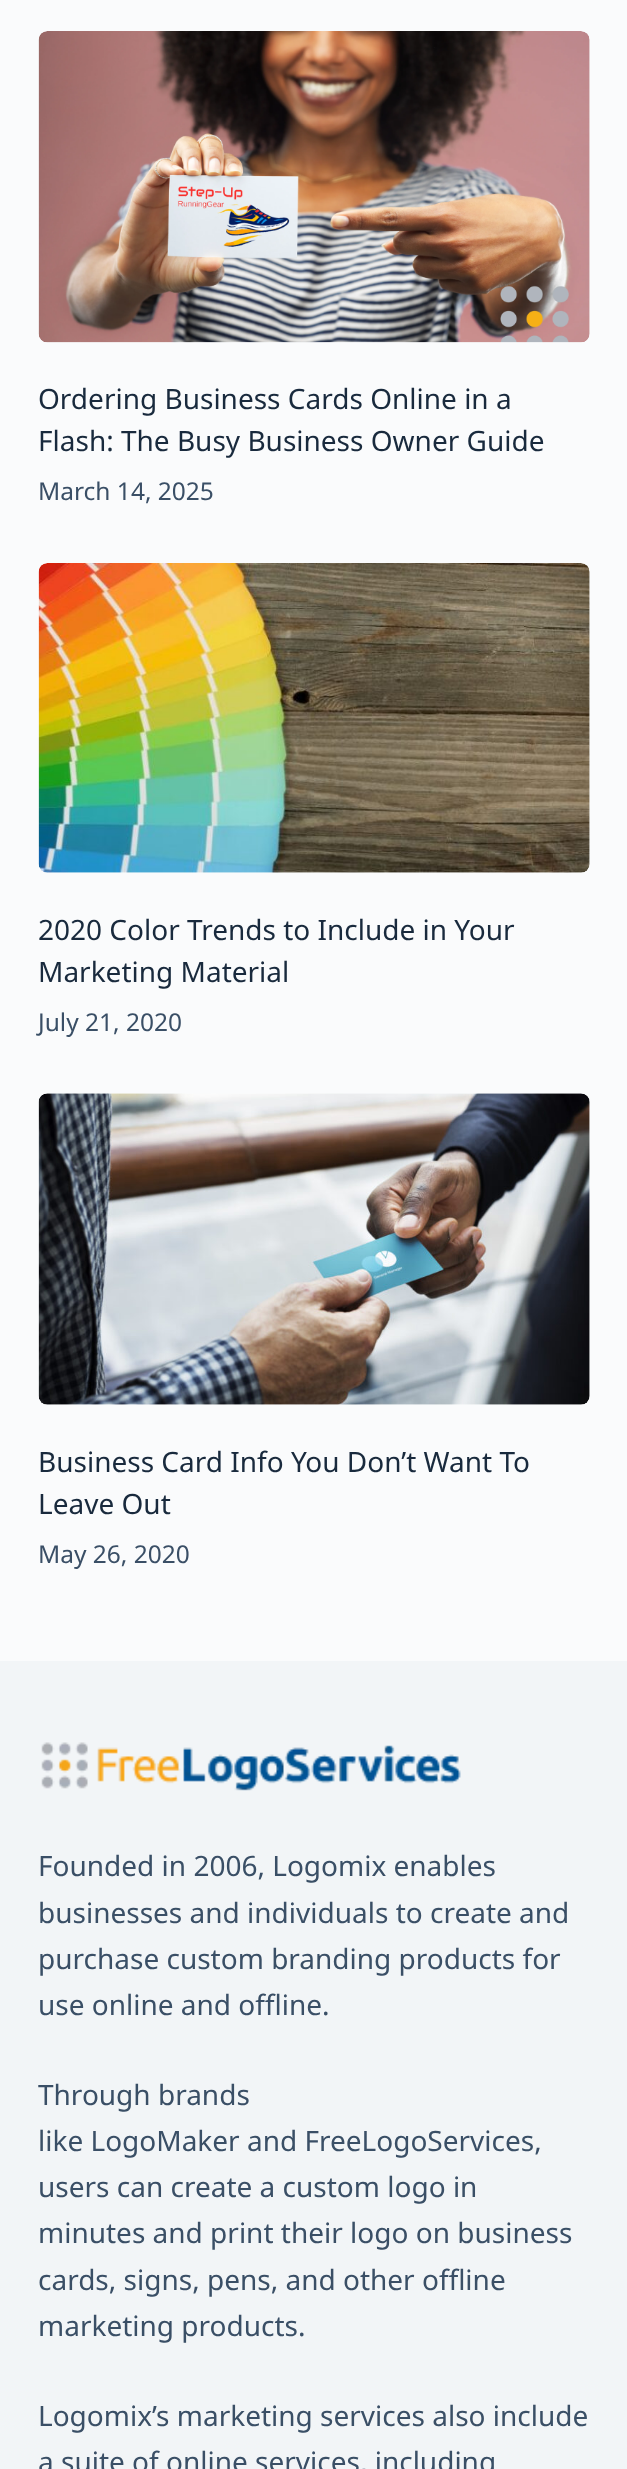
<!DOCTYPE html>
<meta charset="utf-8">
<style>body { margin: 0 } canvas { display: block }</style>
<canvas id="canvas" width="627" height="2469"></canvas>
<img id="img1" src="images/1.png" hidden>
<img id="img2" src="images/2.png" hidden>
<img id="img3" src="images/3.png" hidden>
<img id="img4" src="images/4.png" hidden>
<script>
window.onload = function () {
    const canvas = document.getElementById('canvas');
    const context = canvas.getContext('2d');
    context.miterLimit = 4;
    context.fontKerning = 'normal';

    context.fillStyle = 'rgb(250, 251, 252)';
    context.fillRect(0, 0, 627, 2469);
    context.drawImage(document.getElementById('img1'), 38, 31, 552, 312);
    context.drawImage(document.getElementById('img2'), 38, 563, 552, 310);
    context.drawImage(document.getElementById('img3'), 38, 1093, 552, 312);
    context.fillStyle = 'rgb(242, 245, 247)';
    context.fillRect(0, 1661, 627, 808);
    context.drawImage(document.getElementById('img4'), 41, 1742, 420, 49);
    context.font = '28px Noto Sans';
    context.fillStyle = 'rgb(25, 42, 61)';
    context.fillText('Ordering Business Cards Online in a', 38, 409);
    context.fillText('Flash: The Busy Business Owner Guide', 38, 451);
    context.font = '24.5px Noto Sans';
    context.fillStyle = 'rgb(58, 79, 102)';
    context.fillText('March 14, 2025', 38, 500);
    context.font = '28px Noto Sans';
    context.fillStyle = 'rgb(25, 42, 61)';
    context.fillText('2020 Color Trends to Include in Your', 38, 940);
    context.fillText('Marketing Material', 38, 982);
    context.font = '24.5px Noto Sans';
    context.fillStyle = 'rgb(58, 79, 102)';
    context.fillText('July 21, 2020', 38, 1031);
    context.font = '28px Noto Sans';
    context.fillStyle = 'rgb(25, 42, 61)';
    context.fillText('Business Card Info You Don’t Want To', 38, 1472);
    context.fillText('Leave Out', 38, 1514);
    context.font = '24.5px Noto Sans';
    context.fillStyle = 'rgb(58, 79, 102)';
    context.fillText('May 26, 2020', 38, 1563);
    context.font = '28px Noto Sans';
    context.fillText('Founded in 2006, Logomix enables', 38, 1876);
    context.fillText('businesses and individuals to create and', 38, 1923);
    context.fillText('purchase custom branding products for', 38, 1969);
    context.fillText('use online and offline.', 38, 2015);
    context.fillText('Through brands', 38, 2105);
    context.fillText('like LogoMaker and FreeLogoServices,', 38, 2151);
    context.fillText('users can create a custom logo in', 38, 2197);
    context.fillText('minutes and print their logo on business', 38, 2243);
    context.fillText('cards, signs, pens, and other offline', 38, 2290);
    context.fillText('marketing products.', 38, 2336);
    context.fillText('Logomix’s marketing services also include', 38, 2426);
    context.fillText('a suite of online services, including', 38, 2472);
};
</script>
